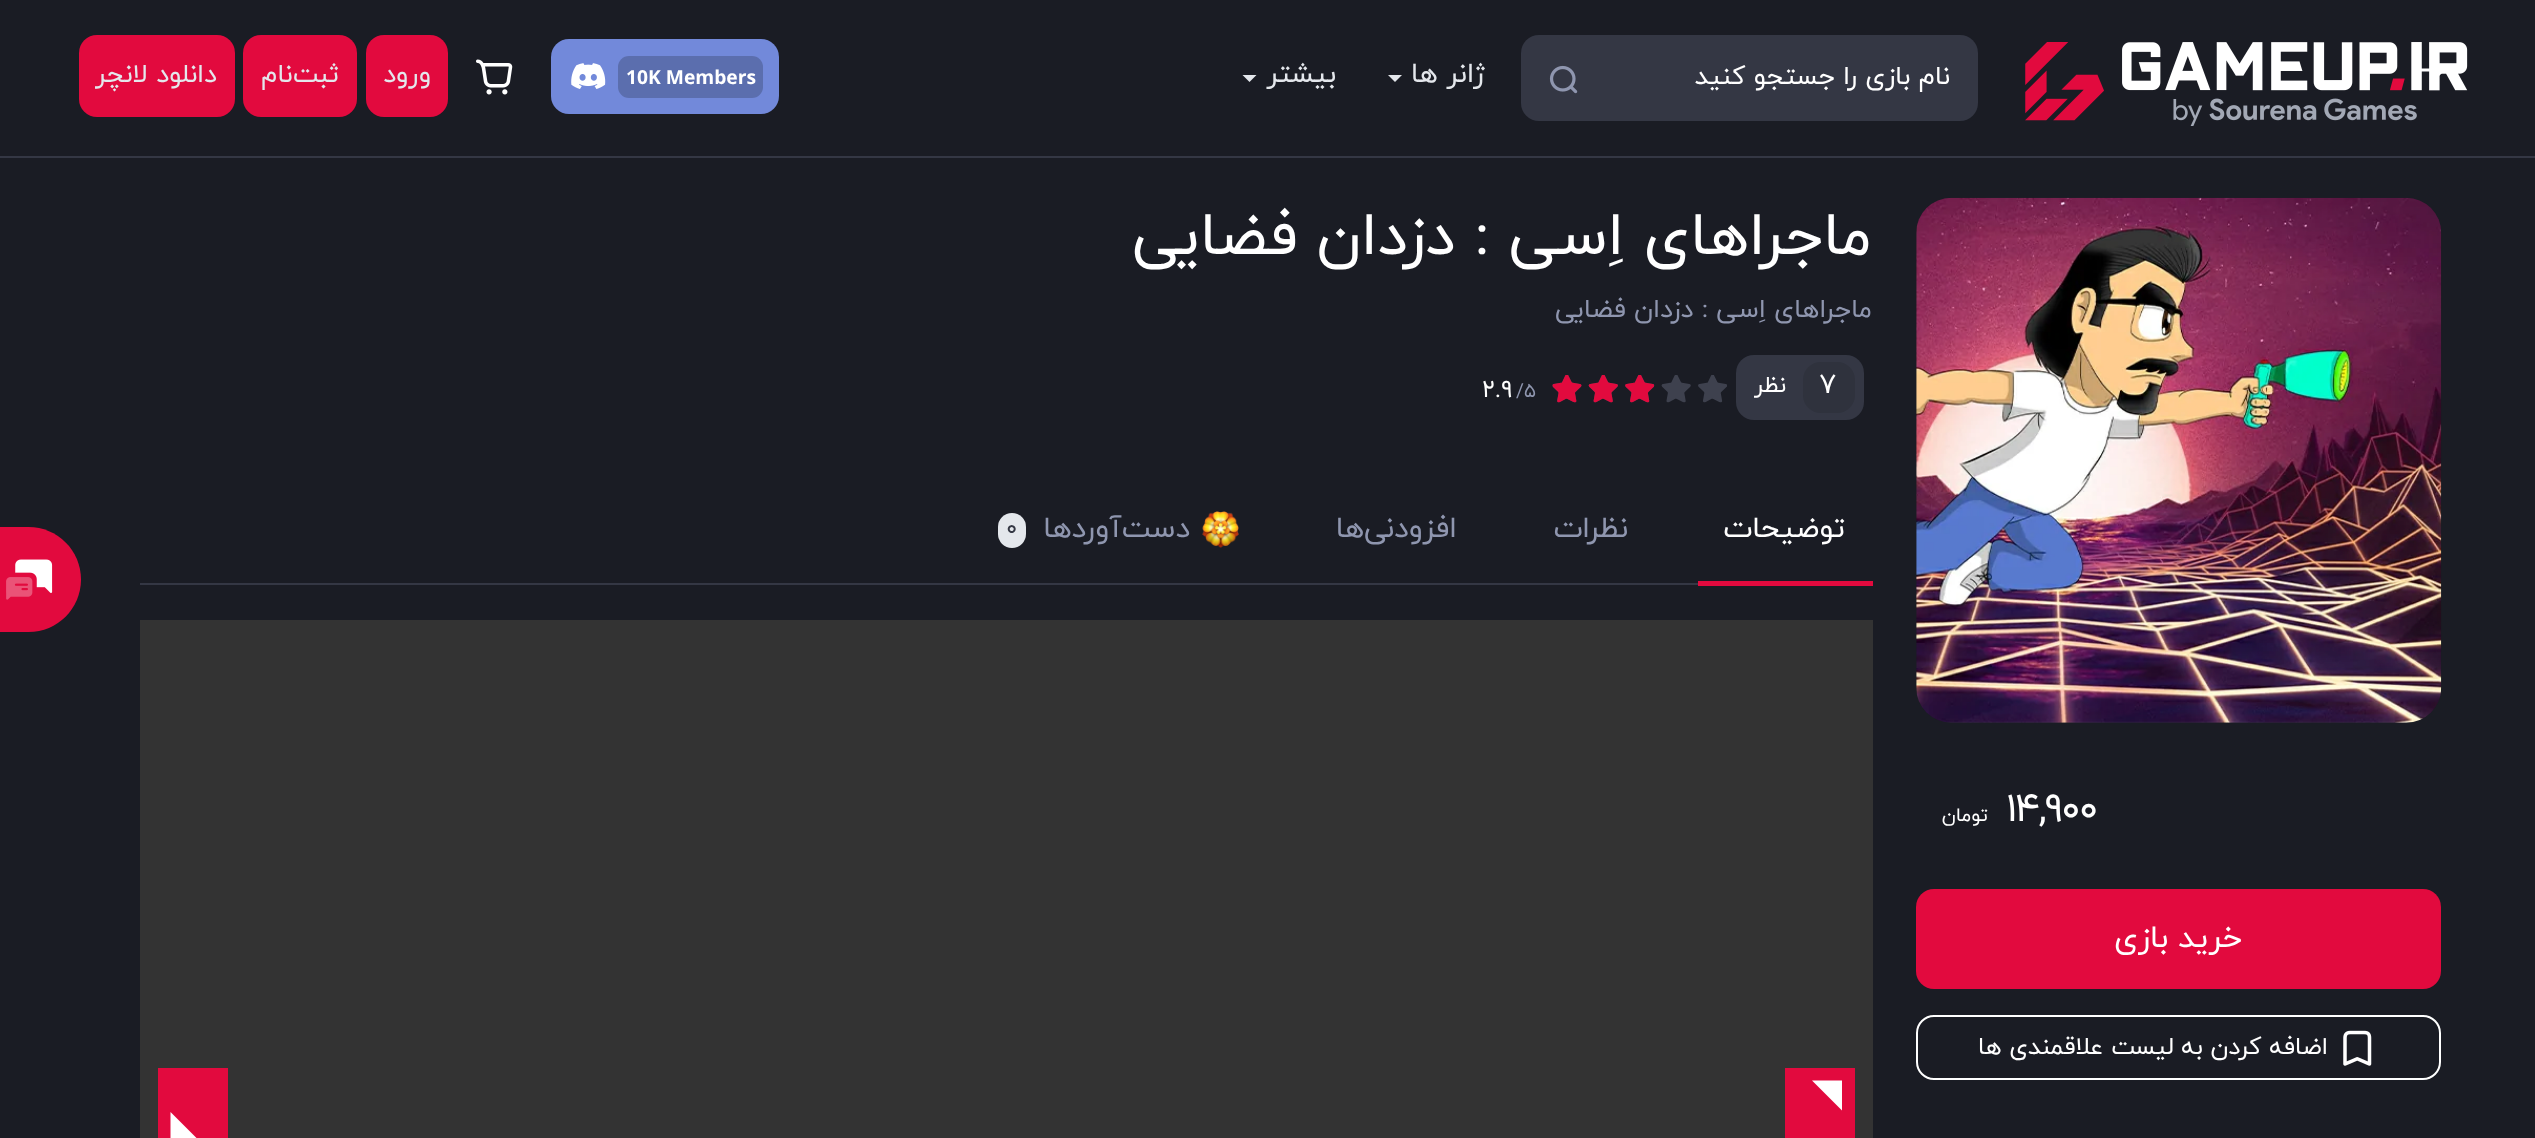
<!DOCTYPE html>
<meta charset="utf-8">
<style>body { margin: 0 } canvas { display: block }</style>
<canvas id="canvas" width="2535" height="1138"></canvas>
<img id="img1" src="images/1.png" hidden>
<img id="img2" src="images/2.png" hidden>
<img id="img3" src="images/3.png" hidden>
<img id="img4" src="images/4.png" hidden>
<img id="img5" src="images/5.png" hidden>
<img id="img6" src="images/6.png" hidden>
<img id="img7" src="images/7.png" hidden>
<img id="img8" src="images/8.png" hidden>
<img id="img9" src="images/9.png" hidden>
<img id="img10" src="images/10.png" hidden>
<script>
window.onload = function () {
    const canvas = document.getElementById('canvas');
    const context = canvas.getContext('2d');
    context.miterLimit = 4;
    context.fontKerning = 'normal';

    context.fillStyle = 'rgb(26, 28, 36)';
    context.fillRect(0, 0, 2535, 1138);
    context.fillStyle = 'rgb(52, 55, 68)';
    context.fillRect(0, 156, 2535, 2);
    context.drawImage(document.getElementById('img1'), 2025, 42, 443, 84);
    context.fillStyle = 'rgb(255, 255, 255)';
    context.beginPath();
    context.moveTo(2438.5, 71.5);
    context.lineTo(2420, 71.5);
    context.lineTo(2420, 68.5);
    context.lineTo(2438.5, 68.5);
    context.lineTo(2430, 60);
    context.lineTo(2432.5, 57.5);
    context.lineTo(2445, 70);
    context.lineTo(2432.5, 82.5);
    context.lineTo(2430, 80);
    context.closePath();
    context.fill('evenodd');
    context.fillStyle = 'rgb(52, 55, 68)';
    context.beginPath();
    context.roundRect(1521, 35, 457, 86, 18);
    context.fill();
    context.drawImage(document.getElementById('img2'), 1549, 65, 29, 29);
    context.fillStyle = 'rgb(228, 231, 236)';
    context.beginPath();
    context.moveTo(1388, 75);
    context.lineTo(1402, 75);
    context.lineTo(1395, 82);
    context.closePath();
    context.fill();
    context.beginPath();
    context.moveTo(1242.5, 75);
    context.lineTo(1256.5, 75);
    context.lineTo(1249.5, 82);
    context.closePath();
    context.fill();
    context.fillStyle = 'rgb(114, 137, 218)';
    context.beginPath();
    context.roundRect(551, 39, 228, 75, 18);
    context.fill();
    context.fillStyle = 'rgb(91, 110, 174)';
    context.beginPath();
    context.roundRect(618, 56, 145, 42, 11);
    context.fill();
    context.drawImage(document.getElementById('img3'), 571, 63, 35, 26);
    context.drawImage(document.getElementById('img4'), 476, 59, 37, 36);
    context.fillStyle = 'rgb(226, 10, 62)';
    context.beginPath();
    context.roundRect(366, 35, 82, 82, 18);
    context.fill();
    context.beginPath();
    context.roundRect(243, 35, 114, 82, 18);
    context.fill();
    context.beginPath();
    context.roundRect(79, 35, 156, 82, 18);
    context.fill();
    context.fillStyle = 'rgb(52, 55, 68)';
    context.beginPath();
    context.roundRect(1736, 355, 128, 65, 18);
    context.fill();
    context.fillStyle = 'rgb(47, 50, 61)';
    context.beginPath();
    context.roundRect(1803, 362, 52, 51, 18);
    context.fill();
    context.drawImage(document.getElementById('img5'), 1552, 375, 175, 28);
    context.drawImage(document.getElementById('img6'), 1552, 375, 102, 28);
    context.fillStyle = 'rgb(52, 55, 68)';
    context.fillRect(140, 583, 1558, 2);
    context.fillStyle = 'rgb(226, 10, 62)';
    context.fillRect(1698, 581, 175, 5);
    context.drawImage(document.getElementById('img7'), 1202, 511, 37, 37);
    context.fillStyle = 'rgb(228, 231, 236)';
    context.beginPath();
    context.roundRect(998, 513, 28, 35, 14);
    context.fill();
    context.fillStyle = 'rgb(51, 51, 51)';
    context.fillRect(140, 620, 1733, 518);
    context.fillStyle = 'rgb(226, 10, 62)';
    context.fillRect(1785, 1068, 70, 70);
    context.fillStyle = 'rgb(255, 255, 255)';
    context.beginPath();
    context.moveTo(1842, 1095.5);
    context.lineTo(1842, 1080.5);
    context.lineTo(1812, 1080.5);
    context.lineTo(1842, 1110.5);
    context.closePath();
    context.fill();
    context.fillStyle = 'rgb(226, 10, 62)';
    context.fillRect(158, 1068, 70, 70);
    context.fillStyle = 'rgb(255, 255, 255)';
    context.beginPath();
    context.moveTo(170.5, 1127);
    context.lineTo(170.5, 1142);
    context.lineTo(200.5, 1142);
    context.lineTo(170.5, 1112);
    context.closePath();
    context.fill();
    context.drawImage(document.getElementById('img8'), 1916, 197, 526, 526);
    context.fillStyle = 'rgb(226, 10, 62)';
    context.beginPath();
    context.roundRect(1916, 889, 525, 100, 18);
    context.fill();
    context.beginPath();
    context.roundRect(1917, 1016, 523, 63, 17);
    context.strokeStyle = 'rgb(255, 255, 255)';
    context.lineWidth = 2;
    context.stroke();
    context.drawImage(document.getElementById('img9'), 2343, 1030, 29, 36);
    context.beginPath();
    context.moveTo(-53, 527);
    context.lineTo(28.5, 527);
    context.bezierCurveTo(57.5, 527, 81, 550.5, 81, 579.5);
    context.bezierCurveTo(81, 608.5, 57.5, 632, 28.5, 632);
    context.lineTo(-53, 632);
    context.closePath();
    context.fill();
    context.drawImage(document.getElementById('img10'), 6, 559, 47, 41);
    context.direction = 'rtl';
    context.font = '26.25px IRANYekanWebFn';
    context.fillStyle = 'rgb(255, 255, 255)';
    context.fillText('نام بازی را جستجو کنید', 1950, 84);
    context.font = '28px IRANYekanWebFn';
    context.fillStyle = 'rgb(228, 231, 236)';
    context.fillText('ژانر ها', 1485, 82);
    context.fillText('بیشتر', 1336, 82);
    context.direction = 'ltr';
    context.font = 'bold 19.25px Open Sans';
    context.fillStyle = 'rgb(255, 255, 255)';
    context.fillText('10K Members', 626, 84);
    context.direction = 'rtl';
    context.font = '26.25px IRANYekanWebFn';
    context.fillStyle = 'rgb(228, 231, 236)';
    context.fillText('ورود', 431, 82);
    context.fillText('ثبت‌نام', 339, 82);
    context.fillText('دانلود لانچر', 217, 82);
    context.font = '61.25px IRANYekanWebFn';
    context.fillStyle = 'rgb(255, 255, 255)';
    context.fillText('ماجراهای اِسی : دزدان فضایی', 1872, 254);
    context.font = '26.25px IRANYekanWebFn';
    context.fillStyle = 'rgb(143, 150, 175)';
    context.fillText('ماجراهای اِسی : دزدان فضایی', 1872, 317);
    context.direction = 'ltr';
    context.font = '28px IRANYekanWebFn';
    context.fillStyle = 'rgb(255, 255, 255)';
    context.fillText('7', 1819, 393);
    context.direction = 'rtl';
    context.font = '23px IRANYekanWebFn';
    context.fillText('‌نظر', 1786, 392);
    context.direction = 'ltr';
    context.font = '19.25px IRANYekanWebFn';
    context.fillStyle = 'rgb(143, 150, 175)';
    context.fillText('/5', 1516, 397);
    context.font = '24.5px IRANYekanWebFn';
    context.fillStyle = 'rgb(255, 255, 255)';
    context.fillText('2.9', 1482, 397);
    context.direction = 'rtl';
    context.font = '29.75px IRANYekanWebFn';
    context.fillText('توضیحات', 1845, 537);
    context.fillStyle = 'rgb(143, 150, 175)';
    context.fillText('نظرات', 1628, 537);
    context.fillText('افزودنی‌ها', 1457, 537);
    context.fillText('دست‌آورد‌ها', 1190, 537);
    context.direction = 'ltr';
    context.font = '23px IRANYekanWebFn';
    context.fillStyle = 'rgb(52, 55, 68)';
    context.fillText('0', 1006, 535);
    context.letterSpacing = '-1.75px';
    context.font = '40px IRANYekanWebFn';
    context.fillStyle = 'rgb(255, 255, 255)';
    context.fillText('14,900', 2006, 821);
    context.letterSpacing = '0px';
    context.direction = 'rtl';
    context.font = '19.25px IRANYekanWebFn';
    context.fillText('تومان', 1988, 821);
    context.font = '31.5px IRANYekanWebFn';
    context.fillText('خرید بازی', 2242, 947);
    context.font = '24.5px IRANYekanWebFn';
    context.fillText('اضافه کردن به لیست علاقمندی ها', 2328, 1054);
};
</script>
